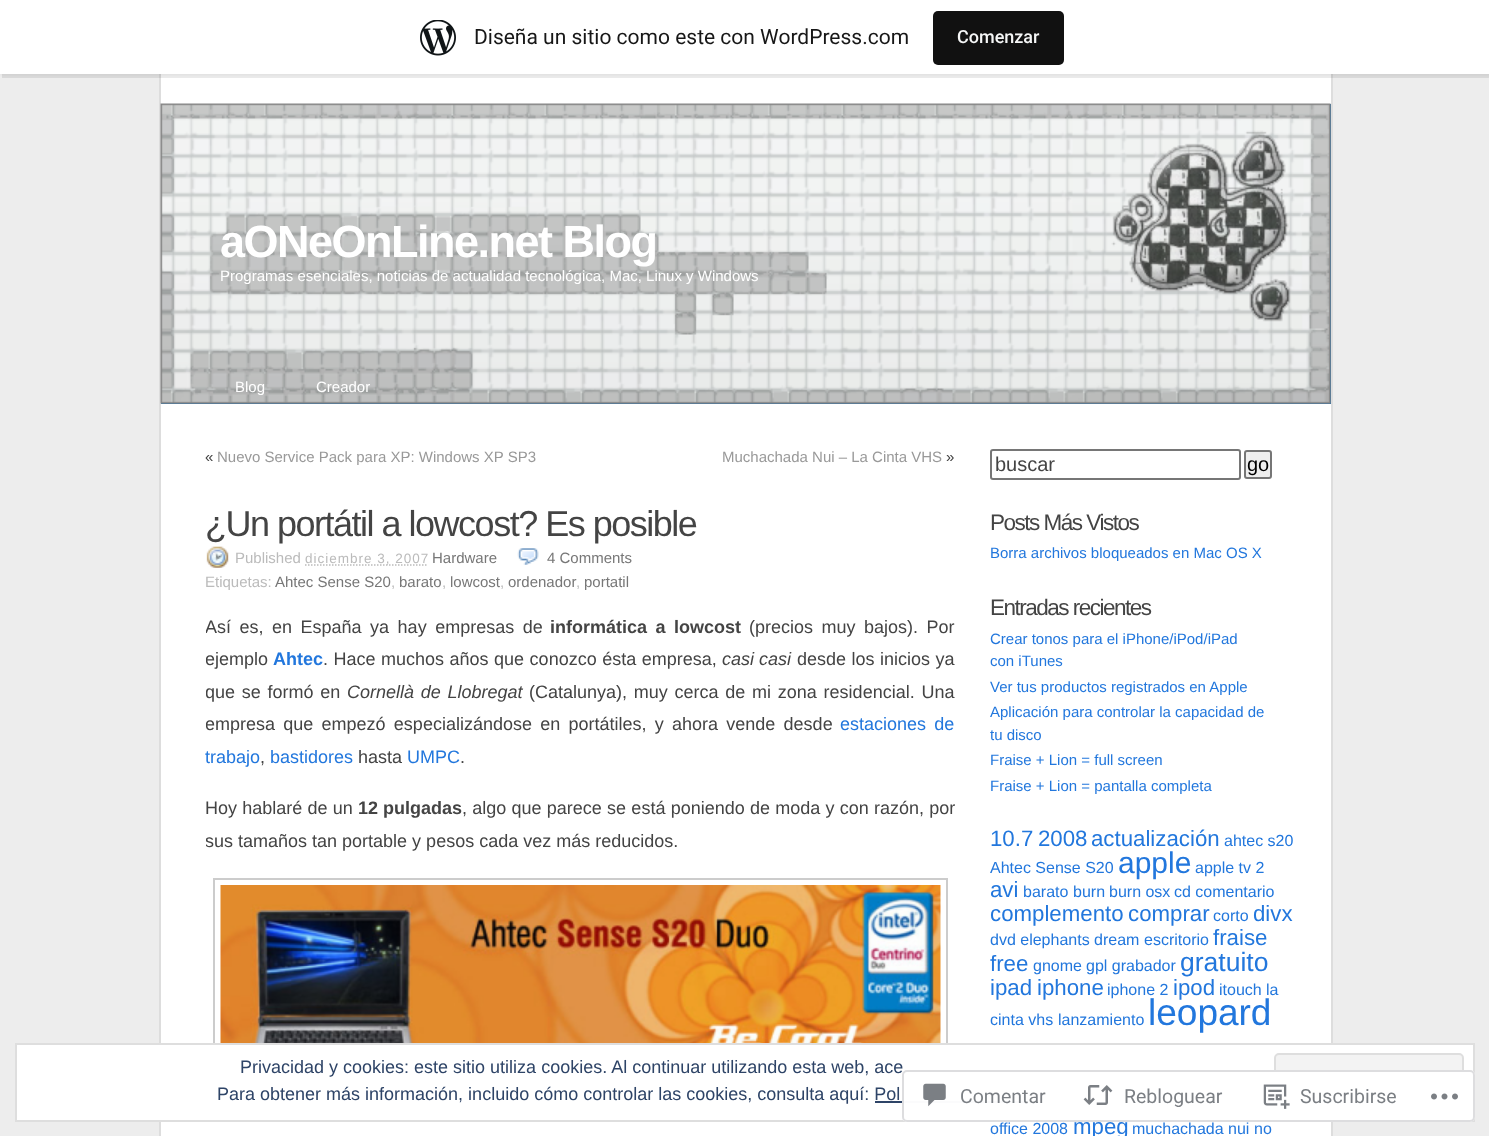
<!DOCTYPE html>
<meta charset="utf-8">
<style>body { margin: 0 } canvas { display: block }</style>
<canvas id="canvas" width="1489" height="1136"></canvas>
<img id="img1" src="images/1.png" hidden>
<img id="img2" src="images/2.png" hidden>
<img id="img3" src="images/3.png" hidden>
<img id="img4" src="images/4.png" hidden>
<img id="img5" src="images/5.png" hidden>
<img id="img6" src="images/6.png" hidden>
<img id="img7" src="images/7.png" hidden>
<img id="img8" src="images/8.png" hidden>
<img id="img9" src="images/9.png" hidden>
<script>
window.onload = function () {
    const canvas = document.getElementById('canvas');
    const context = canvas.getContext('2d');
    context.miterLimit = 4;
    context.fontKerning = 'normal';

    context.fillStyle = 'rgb(237, 237, 237)';
    context.fillRect(0, 0, 1489, 1136);
    context.fillStyle = 'rgb(255, 255, 255)';
    context.fillRect(161, 74, 1170, 1062);
    context.fillStyle = 'rgb(221, 221, 221)';
    context.fillRect(1331, 74, 2, 1062);
    context.fillRect(159, 74, 2, 1062);
    context.fillStyle = 'rgba(0, 0, 0, 0.05)';
    context.filter = 'blur(1.5px)';
    context.beginPath();
    context.rect(0, 2, 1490, 73);
    context.fill();
    context.filter = 'none';
    context.fillStyle = 'rgba(0, 0, 0, 0.08)';
    context.beginPath();
    context.moveTo(2, 74);
    context.lineTo(2, 78);
    context.lineTo(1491, 78);
    context.lineTo(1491, 5);
    context.lineTo(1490, 5);
    context.lineTo(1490, 74);
    context.closePath();
    context.fill();
    context.fillStyle = 'rgb(255, 255, 255)';
    context.fillRect(0, 0, 1489, 74);
    context.drawImage(document.getElementById('img1'), 420, 20, 36, 36);
    context.fillStyle = 'rgb(17, 17, 17)';
    context.beginPath();
    context.roundRect(933, 11, 131, 54, 5);
    context.fill();
    context.fillStyle = 'rgb(51, 113, 163)';
    context.fillRect(161, 104, 1170, 300);
    context.drawImage(document.getElementById('img2'), 160, 103, 1171, 301);
    context.drawImage(document.getElementById('img3'), 206, 546, 23, 22);
    context.beginPath();
    context.moveTo(305, 565);
    context.lineTo(428, 565);
    context.strokeStyle = 'rgb(187, 187, 187)';
    context.lineWidth = 1.5;
    context.setLineDash([1.5, 1.5]);
    context.stroke();
    context.drawImage(document.getElementById('img4'), 517, 548, 22, 17);
    context.strokeStyle = 'rgb(204, 204, 204)';
    context.lineWidth = 2;
    context.setLineDash([]);
    context.strokeRect(214, 879, 733, 239);
    context.drawImage(document.getElementById('img5'), 220, 885, 721, 158);
    context.beginPath();
    context.roundRect(991, 450, 249, 29, 2);
    context.strokeStyle = 'rgb(118, 118, 118)';
    context.stroke();
    context.fillStyle = 'rgb(239, 239, 239)';
    context.beginPath();
    context.roundRect(1245, 451, 26, 27, 2);
    context.fill();
    context.stroke();
    context.fillStyle = 'rgb(255, 255, 255)';
    context.beginPath();
    context.rect(16, 1044, 1458, 77);
    context.fill();
    context.strokeStyle = 'rgb(222, 222, 222)';
    context.stroke();
    context.fillStyle = 'rgb(243, 243, 243)';
    context.beginPath();
    context.roundRect(1275, 1054, 188, 57, 4);
    context.fill();
    context.stroke();
    context.fillStyle = 'rgb(46, 68, 103)';
    context.fillRect(875, 1101, 150, 2);
    context.font = '21px Roboto';
    context.fillStyle = 'rgb(23, 23, 23)';
    context.fillText('Diseña un sitio como este con WordPress.com', 474, 44);
    context.font = '500 18px Roboto';
    context.fillStyle = 'rgb(246, 247, 247)';
    context.fillText('Comenzar', 957, 43);
    context.letterSpacing = '-1.5px';
    context.font = 'bold 45px Liberation Sans';
    context.fillStyle = 'rgb(255, 255, 255)';
    context.fillText('aONeOnLine.net Blog', 220, 257);
    context.letterSpacing = '0px';
    context.font = '15px Liberation Sans';
    context.fillText('Programas esenciales, noticias de actualidad tecnológica, Mac, Linux y Windows', 220, 281);
    context.fillText('Blog', 235, 392);
    context.fillText('Creador', 316, 392);
    context.fillStyle = 'rgb(68, 68, 68)';
    context.fillText('«', 205, 462);
    context.fillStyle = 'rgb(153, 153, 153)';
    context.fillText('Nuevo Service Pack para XP: Windows XP SP3', 217, 462);
    context.fillText('Muchachada Nui – La Cinta VHS', 722, 462);
    context.fillStyle = 'rgb(68, 68, 68)';
    context.fillText('»', 946, 462);
    context.letterSpacing = '-1.5px';
    context.font = '36px Liberation Sans';
    context.fillText('¿Un portátil a lowcost? Es posible', 205, 536);
    context.letterSpacing = '0px';
    context.font = '15px Liberation Sans';
    context.fillStyle = 'rgb(187, 187, 187)';
    context.fillText('Published', 235, 563);
    context.letterSpacing = '1px';
    context.font = '13.5px Liberation Sans';
    context.fillText('diciembre 3, 2007', 305, 563);
    context.letterSpacing = '0px';
    context.font = '15px Liberation Sans';
    context.fillStyle = 'rgb(119, 119, 119)';
    context.fillText('Hardware', 432, 563);
    context.fillText('4 Comments', 547, 563);
    context.fillStyle = 'rgb(187, 187, 187)';
    context.fillText('Etiquetas:', 205, 587);
    context.fillStyle = 'rgb(119, 119, 119)';
    context.fillText('Ahtec Sense S20', 275, 587);
    context.fillStyle = 'rgb(187, 187, 187)';
    context.fillText(',', 391, 587);
    context.fillStyle = 'rgb(119, 119, 119)';
    context.fillText('barato', 399, 587);
    context.fillStyle = 'rgb(187, 187, 187)';
    context.fillText(',', 442, 587);
    context.fillStyle = 'rgb(119, 119, 119)';
    context.fillText('lowcost', 450, 587);
    context.fillStyle = 'rgb(187, 187, 187)';
    context.fillText(',', 500, 587);
    context.fillStyle = 'rgb(119, 119, 119)';
    context.fillText('ordenador', 508, 587);
    context.fillStyle = 'rgb(187, 187, 187)';
    context.fillText(',', 576, 587);
    context.fillStyle = 'rgb(119, 119, 119)';
    context.fillText('portatil', 584, 587);
    context.save();
    context.beginPath();
    context.rect(206, 404, 750, 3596);
    context.clip();
    context.wordSpacing = '3.5px';
    context.font = '18px Liberation Sans';
    context.fillStyle = 'rgb(68, 68, 68)';
    context.fillText('Así es, en España ya hay empresas de', 205, 633);
    context.restore();
    context.wordSpacing = '3.5px';
    context.font = 'bold 18px Liberation Sans';
    context.fillStyle = 'rgb(68, 68, 68)';
    context.fillText('informática a lowcost', 550, 633);
    context.font = '18px Liberation Sans';
    context.fillText('(precios muy bajos). Por', 749, 633);
    context.save();
    context.beginPath();
    context.rect(206, 404, 750, 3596);
    context.clip();
    context.wordSpacing = '0px';
    context.fillText('ejemplo', 205, 665);
    context.restore();
    context.wordSpacing = '0px';
    context.font = 'bold 18px Liberation Sans';
    context.fillStyle = 'rgb(34, 119, 221)';
    context.fillText('Ahtec', 273, 665);
    context.wordSpacing = '0.5px';
    context.font = '18px Liberation Sans';
    context.fillStyle = 'rgb(68, 68, 68)';
    context.fillText('. Hace muchos años que conozco ésta empresa,', 323, 665);
    context.wordSpacing = '0px';
    context.font = 'italic 18px Liberation Sans';
    context.fillText('casi casi', 722, 665);
    context.wordSpacing = '0.5px';
    context.font = '18px Liberation Sans';
    context.fillText('desde los inicios ya', 797, 665);
    context.save();
    context.beginPath();
    context.rect(206, 404, 750, 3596);
    context.clip();
    context.wordSpacing = '1.75px';
    context.fillText('que se formó en', 205, 698);
    context.restore();
    context.wordSpacing = '1.75px';
    context.font = 'italic 18px Liberation Sans';
    context.fillText('Cornellà de Llobregat', 347, 698);
    context.font = '18px Liberation Sans';
    context.fillText('(Catalunya), muy cerca de mi zona residencial. Una', 529, 698);
    context.save();
    context.beginPath();
    context.rect(206, 404, 750, 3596);
    context.clip();
    context.wordSpacing = '3.25px';
    context.fillText('empresa que empezó especializándose en portátiles, y ahora vende desde', 205, 730);
    context.restore();
    context.wordSpacing = '3.25px';
    context.fillStyle = 'rgb(34, 119, 221)';
    context.fillText('estaciones de', 840, 730);
    context.wordSpacing = '0px';
    context.fillText('trabajo', 205, 763);
    context.fillStyle = 'rgb(68, 68, 68)';
    context.fillText(',', 260, 763);
    context.fillStyle = 'rgb(34, 119, 221)';
    context.fillText('bastidores', 270, 763);
    context.fillStyle = 'rgb(68, 68, 68)';
    context.fillText('hasta', 358, 763);
    context.fillStyle = 'rgb(34, 119, 221)';
    context.fillText('UMPC', 407, 763);
    context.fillStyle = 'rgb(68, 68, 68)';
    context.fillText('.', 460, 763);
    context.wordSpacing = '0.25px';
    context.fillText('Hoy hablaré de un', 205, 814);
    context.wordSpacing = '0px';
    context.font = 'bold 18px Liberation Sans';
    context.fillText('12 pulgadas', 358, 814);
    context.wordSpacing = '0.25px';
    context.font = '18px Liberation Sans';
    context.fillText(', algo que parece se está poniendo de moda y con razón, por', 462, 814);
    context.save();
    context.beginPath();
    context.rect(206, 404, 750, 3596);
    context.clip();
    context.wordSpacing = '0px';
    context.fillText('sus tamaños tan portable y pesos cada vez más reducidos.', 205, 847);
    context.restore();
    context.wordSpacing = '0px';
    context.font = '20px Liberation Sans';
    context.fillText('buscar', 995, 471);
    context.fillStyle = 'rgb(0, 0, 0)';
    context.fillText('go', 1247, 471);
    context.letterSpacing = '-1.5px';
    context.font = '22.5px Liberation Sans';
    context.fillStyle = 'rgb(68, 68, 68)';
    context.fillText('Posts Más Vistos', 990, 530);
    context.letterSpacing = '0px';
    context.font = '15px Liberation Sans';
    context.fillStyle = 'rgb(34, 119, 221)';
    context.fillText('Borra archivos bloqueados en Mac OS X', 990, 558);
    context.letterSpacing = '-1.5px';
    context.font = '22.5px Liberation Sans';
    context.fillStyle = 'rgb(68, 68, 68)';
    context.fillText('Entradas recientes', 990, 615);
    context.letterSpacing = '0px';
    context.font = '15px Liberation Sans';
    context.fillStyle = 'rgb(34, 119, 221)';
    context.fillText('Crear tonos para el iPhone/iPod/iPad', 990, 644);
    context.fillText('con iTunes', 990, 666);
    context.fillText('Ver tus productos registrados en Apple', 990, 692);
    context.fillText('Aplicación para controlar la capacidad de', 990, 717);
    context.fillText('tu disco', 990, 740);
    context.fillText('Fraise + Lion = full screen', 990, 765);
    context.fillText('Fraise + Lion = pantalla completa', 990, 791);
    context.font = '22.25px Liberation Sans';
    context.fillText('10.7', 990, 846);
    context.fillText('2008', 1038, 846);
    context.fillText('actualización', 1091, 846);
    context.font = '16px Liberation Sans';
    context.fillText('ahtec s20', 1224, 846);
    context.fillText('Ahtec Sense S20', 990, 873);
    context.font = '30px Liberation Sans';
    context.fillText('apple', 1118, 873);
    context.font = '16px Liberation Sans';
    context.fillText('apple tv 2', 1195, 873);
    context.font = '22.25px Liberation Sans';
    context.fillText('avi', 990, 897);
    context.font = '16px Liberation Sans';
    context.fillText('barato', 1023, 897);
    context.fillText('burn', 1073, 897);
    context.fillText('burn osx', 1109, 897);
    context.fillText('cd comentario', 1174, 897);
    context.font = '22.25px Liberation Sans';
    context.fillText('complemento', 990, 921);
    context.fillText('comprar', 1128, 921);
    context.font = '16px Liberation Sans';
    context.fillText('corto', 1213, 921);
    context.font = '22.25px Liberation Sans';
    context.fillText('divx', 1253, 921);
    context.font = '16px Liberation Sans';
    context.fillText('dvd elephants dream', 990, 945);
    context.fillText('escritorio', 1144, 945);
    context.font = '22.25px Liberation Sans';
    context.fillText('fraise', 1213, 945);
    context.fillText('free', 990, 971);
    context.font = '16px Liberation Sans';
    context.fillText('gnome', 1033, 971);
    context.fillText('gpl grabador', 1086, 971);
    context.font = '26.5px Liberation Sans';
    context.fillText('gratuito', 1180, 971);
    context.font = '22.25px Liberation Sans';
    context.fillText('ipad', 990, 995);
    context.fillText('iphone', 1037, 995);
    context.font = '16px Liberation Sans';
    context.fillText('iphone 2', 1107, 995);
    context.font = '22.25px Liberation Sans';
    context.fillText('ipod', 1173, 995);
    context.font = '16px Liberation Sans';
    context.fillText('itouch', 1219, 995);
    context.fillText('la', 1266, 995);
    context.fillText('cinta vhs', 990, 1025);
    context.fillText('lanzamiento', 1058, 1025);
    context.font = '37px Liberation Sans';
    context.fillText('leopard', 1148, 1025);
    context.font = '16px Liberation Sans';
    context.fillText('office 2008', 990, 1134);
    context.font = '22.25px Liberation Sans';
    context.fillText('mpeg', 1073, 1134);
    context.font = '16px Liberation Sans';
    context.fillText('muchachada nui', 1132, 1134);
    context.fillText('no', 1254, 1134);
    context.font = '18px Liberation Sans';
    context.fillStyle = 'rgb(46, 68, 103)';
    context.fillText('Privacidad y cookies: este sitio utiliza cookies. Al continuar utilizando esta web, ace', 240, 1073);
    context.fillText('Para obtener más información, incluido cómo controlar las cookies, consulta aquí: Pol', 217, 1100);
    context.fillStyle = 'rgba(255, 255, 255, 0.98)';
    context.beginPath();
    context.roundRect(902, 1070, 573, 52, 5);
    context.fill();
    context.beginPath();
    context.roundRect(903, 1071, 571, 50, 4);
    context.strokeStyle = 'rgba(220, 220, 222, 0.98)';
    context.stroke();
    context.drawImage(document.getElementById('img6'), 923, 1083, 23, 24);
    context.font = '19.5px Roboto';
    context.fillStyle = 'rgb(123, 127, 132)';
    context.fillText('Comentar', 960, 1103);
    context.drawImage(document.getElementById('img7'), 1083, 1085, 30, 20);
    context.fillText('Rebloguear', 1124, 1103);
    context.drawImage(document.getElementById('img8'), 1263, 1084, 27, 25);
    context.fillText('Suscribirse', 1300, 1103);
    context.drawImage(document.getElementById('img9'), 1431, 1093, 27, 7);
};
</script>
